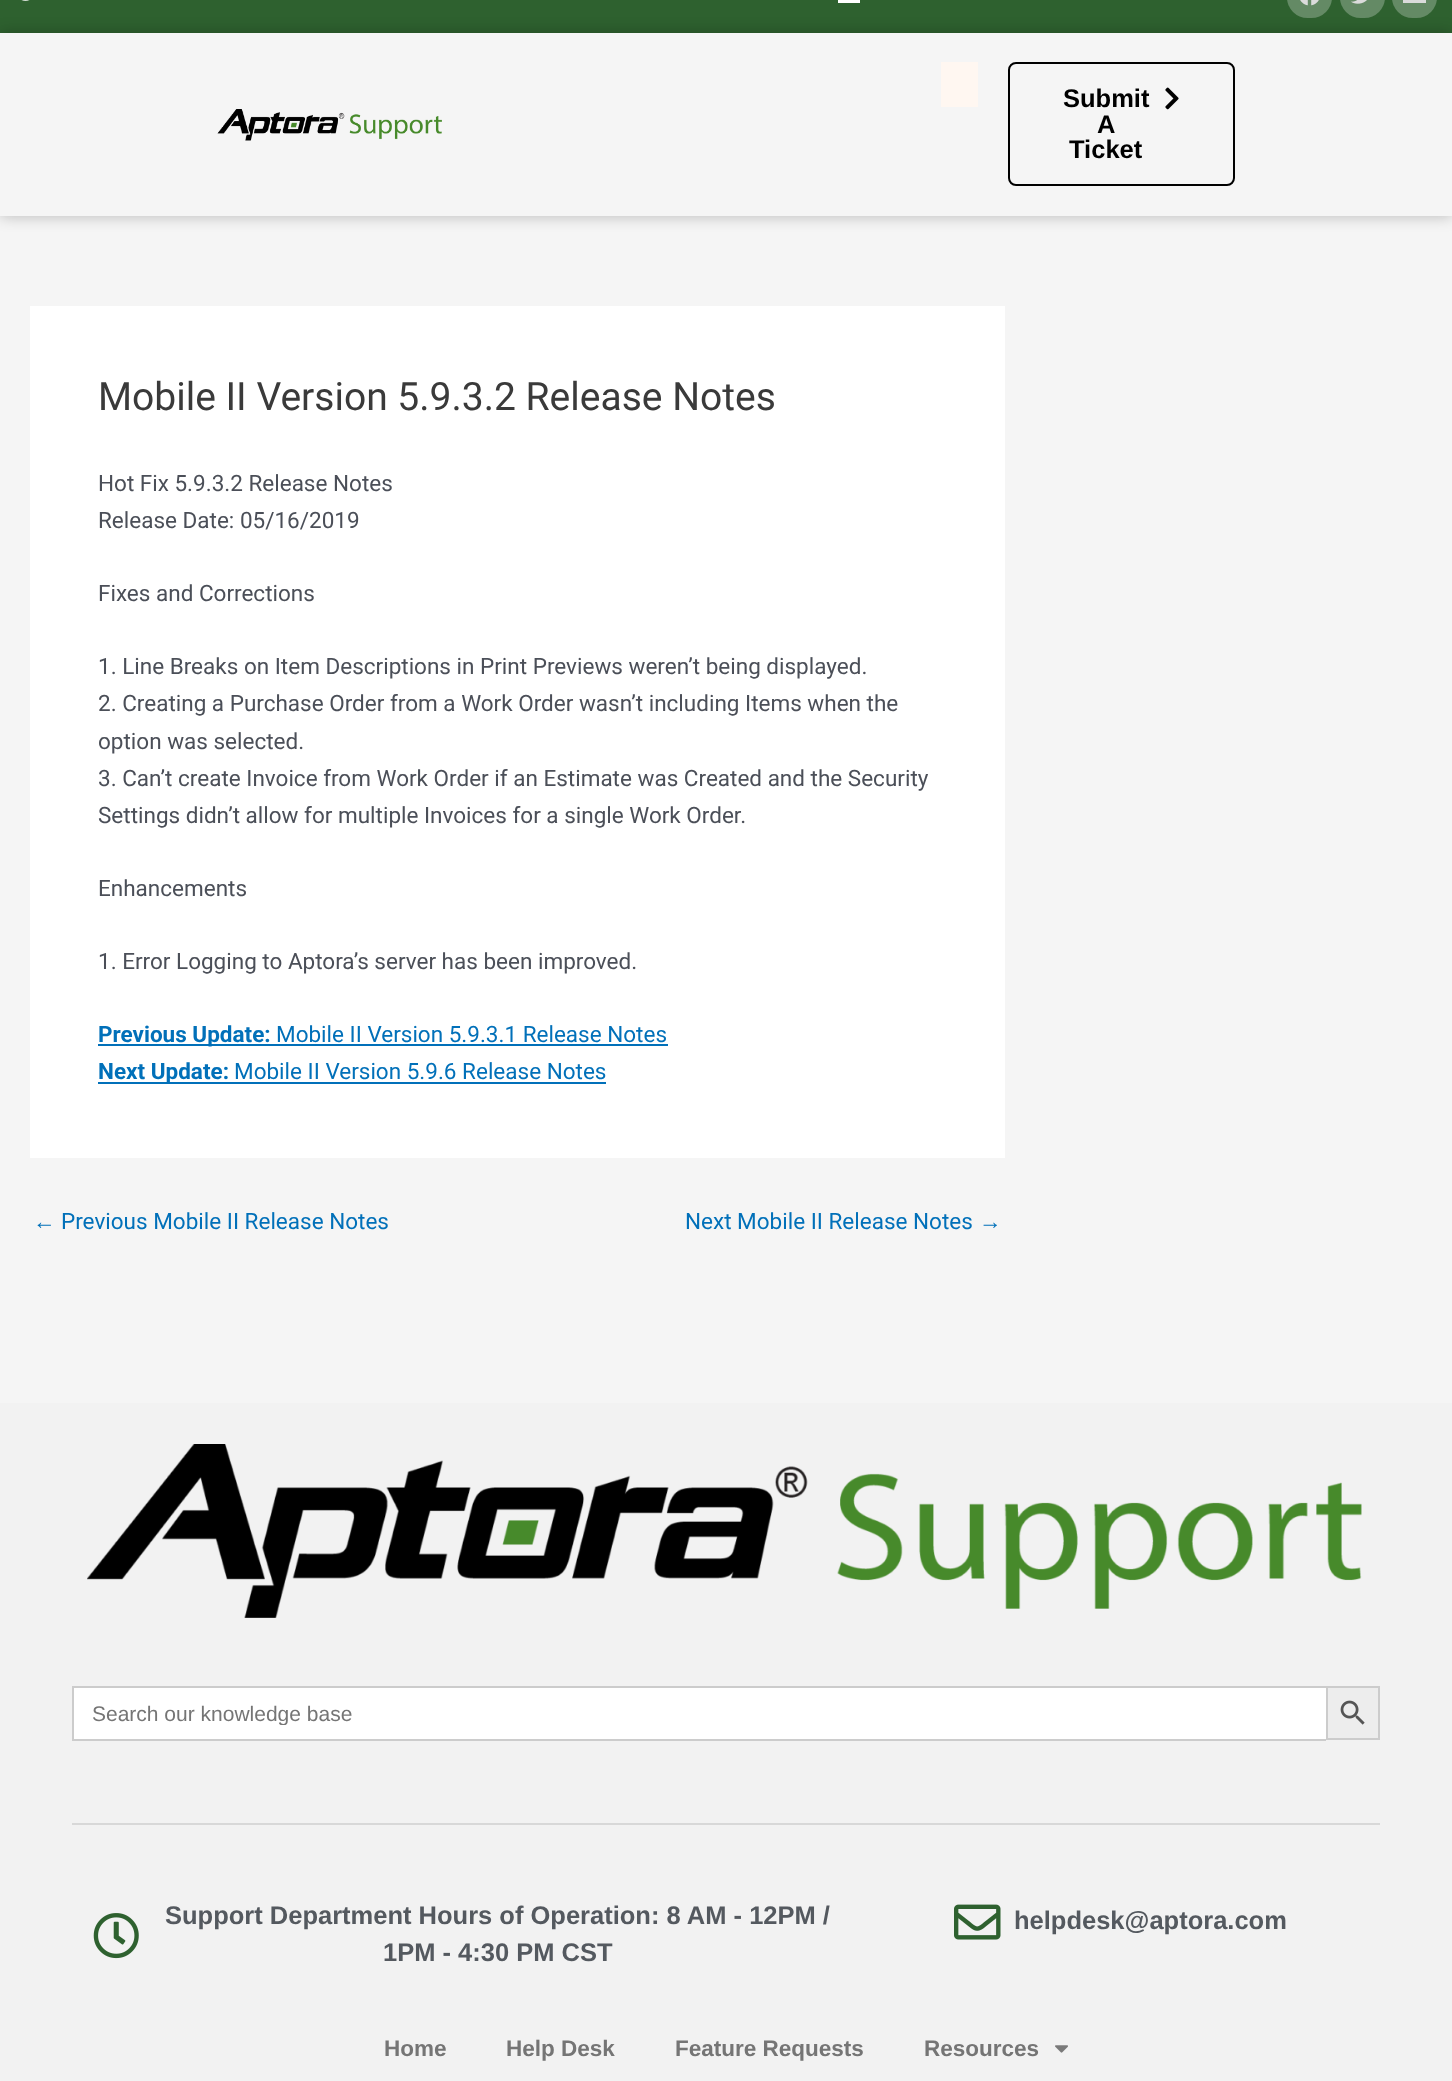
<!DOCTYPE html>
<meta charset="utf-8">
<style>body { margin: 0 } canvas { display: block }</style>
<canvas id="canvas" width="1452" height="2081"></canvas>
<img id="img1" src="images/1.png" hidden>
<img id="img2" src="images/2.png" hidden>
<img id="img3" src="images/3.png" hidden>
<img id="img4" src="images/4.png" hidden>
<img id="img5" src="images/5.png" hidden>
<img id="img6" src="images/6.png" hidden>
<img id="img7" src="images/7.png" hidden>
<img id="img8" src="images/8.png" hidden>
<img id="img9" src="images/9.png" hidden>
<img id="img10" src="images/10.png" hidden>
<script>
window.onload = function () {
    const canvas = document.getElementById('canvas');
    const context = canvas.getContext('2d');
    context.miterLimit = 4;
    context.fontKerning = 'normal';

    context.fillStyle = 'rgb(245, 245, 245)';
    context.fillRect(0, 0, 1452, 2081);
    context.fillStyle = 'rgb(46, 97, 47)';
    context.fillRect(0, 0, 1452, 33);
    context.drawImage(document.getElementById('img1'), 21, 0, 9, 1);
    context.fillStyle = 'rgb(255, 255, 255)';
    context.fillRect(838, 0, 22, 3);
    context.fillStyle = 'rgb(100, 138, 101)';
    context.beginPath();
    context.roundRect(1287, -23, 45, 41, 22.5);
    context.fill();
    context.drawImage(document.getElementById('img2'), 1300, 0, 19, 6);
    context.beginPath();
    context.roundRect(1340, -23, 45, 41, 22.5);
    context.fill();
    context.drawImage(document.getElementById('img3'), 1351, 0, 16, 4);
    context.beginPath();
    context.roundRect(1392, -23, 45, 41, 22.5);
    context.fill();
    context.fillStyle = 'rgb(219, 219, 219)';
    context.fillRect(1403, 0, 23, 3);
    context.save();
    context.beginPath();
    context.moveTo(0, 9);
    context.lineTo(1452, 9);
    context.lineTo(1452, 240);
    context.lineTo(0, 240);
    context.closePath();
    context.moveTo(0, 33);
    context.lineTo(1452, 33);
    context.lineTo(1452, 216);
    context.lineTo(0, 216);
    context.closePath();
    context.clip('evenodd');
    context.fillStyle = 'rgba(0, 0, 0, 0.25)';
    context.filter = 'blur(7.5px)';
    context.beginPath();
    context.rect(0, 33, 1452, 183);
    context.fill();
    context.filter = 'none';
    context.restore();
    context.drawImage(document.getElementById('img4'), 217, 109, 225, 32);
    context.fillStyle = 'rgb(255, 247, 241)';
    context.fillRect(941, 62, 37, 45);
    context.beginPath();
    context.roundRect(1009, 63, 225, 122, 7);
    context.strokeStyle = 'rgb(0, 0, 0)';
    context.lineWidth = 2;
    context.stroke();
    context.drawImage(document.getElementById('img5'), 1165, 87, 14, 23);
    context.fillStyle = 'rgb(255, 255, 255)';
    context.fillRect(30, 306, 975, 852);
    context.fillStyle = 'rgb(1, 112, 185)';
    context.fillRect(98, 1044, 570, 2);
    context.fillRect(98, 1082, 508, 2);
    context.fillStyle = 'rgb(242, 242, 242)';
    context.fillRect(0, 1403, 1452, 678);
    context.drawImage(document.getElementById('img6'), 87, 1444, 1275, 174);
    context.fillStyle = 'rgb(255, 255, 255)';
    context.fillRect(74, 1688, 1252, 51);
    context.fillStyle = 'rgb(204, 204, 204)';
    context.fillRect(72, 1686, 1254, 2);
    context.fillRect(72, 1739, 1254, 2);
    context.fillRect(72, 1686, 2, 54);
    context.fillStyle = 'rgb(237, 237, 237)';
    context.beginPath();
    context.rect(1327, 1687, 52, 52);
    context.fill();
    context.strokeStyle = 'rgb(204, 204, 204)';
    context.stroke();
    context.drawImage(document.getElementById('img7'), 1340, 1700, 25, 25);
    context.fillStyle = 'rgb(216, 216, 216)';
    context.fillRect(72, 1823, 1308, 2);
    context.drawImage(document.getElementById('img8'), 93, 1913, 46, 46);
    context.drawImage(document.getElementById('img9'), 954, 1904, 47, 36);
    context.drawImage(document.getElementById('img10'), 1055, 2045, 13, 8);
    context.font = 'bold 25.5px Liberation Sans';
    context.fillStyle = 'rgb(0, 0, 0)';
    context.fillText('Submit', 1063, 107);
    context.fillText('A', 1097, 133);
    context.fillText('Ticket', 1069, 158);
    context.font = '39px Roboto';
    context.fillStyle = 'rgb(58, 58, 58)';
    context.fillText('Mobile II Version 5.9.3.2 Release Notes', 98, 410);
    context.font = '22.5px Roboto';
    context.fillStyle = 'rgb(75, 79, 88)';
    context.fillText('Hot Fix 5.9.3.2 Release Notes', 98, 491);
    context.fillText('Release Date: 05/16/2019', 98, 528);
    context.fillText('Fixes and Corrections', 98, 601);
    context.fillText('1. Line Breaks on Item Descriptions in Print Previews weren’t being displayed.', 98, 674);
    context.fillText('2. Creating a Purchase Order from a Work Order wasn’t including Items when the', 98, 711);
    context.fillText('option was selected.', 98, 749);
    context.fillText('3. Can’t create Invoice from Work Order if an Estimate was Created and the Security', 98, 786);
    context.fillText('Settings didn’t allow for multiple Invoices for a single Work Order.', 98, 823);
    context.fillText('Enhancements', 98, 896);
    context.fillText('1. Error Logging to Aptora’s server has been improved.', 98, 969);
    context.font = 'bold 22.5px Roboto';
    context.fillStyle = 'rgb(1, 112, 185)';
    context.fillText('Previous Update:', 98, 1042);
    context.font = '22.5px Roboto';
    context.fillText('Mobile II Version 5.9.3.1 Release Notes', 276, 1042);
    context.font = 'bold 22.5px Roboto';
    context.fillText('Next Update:', 98, 1079);
    context.font = '22.5px Roboto';
    context.fillText('Mobile II Version 5.9.6 Release Notes', 234, 1079);
    context.font = '22.5px Liberation Sans';
    context.fillText('←', 33, 1229);
    context.font = '22.5px Roboto';
    context.fillText('Previous Mobile II Release Notes', 61, 1229);
    context.fillText('Next Mobile II Release Notes', 685, 1229);
    context.font = '22.5px Liberation Sans';
    context.fillText('→', 979, 1229);
    context.save();
    context.beginPath();
    context.rect(92, 1701, 1216, 24);
    context.clip();
    context.font = '21px Liberation Sans';
    context.fillStyle = 'rgb(117, 117, 117)';
    context.fillText('Search our knowledge base', 92, 1721);
    context.restore();
    context.font = 'bold 25.5px Liberation Sans';
    context.fillStyle = 'rgb(84, 89, 95)';
    context.fillText('Support Department Hours of Operation: 8 AM - 12PM /', 165, 1924);
    context.fillText('1PM - 4:30 PM CST', 383, 1961);
    context.fillText('helpdesk@aptora.com', 1014, 1929);
    context.font = 'bold 22.5px Liberation Sans';
    context.fillStyle = 'rgb(117, 117, 117)';
    context.fillText('Home', 384, 2056);
    context.fillText('Help Desk', 506, 2056);
    context.fillText('Feature Requests', 675, 2056);
    context.fillText('Resources', 924, 2056);
};
</script>
